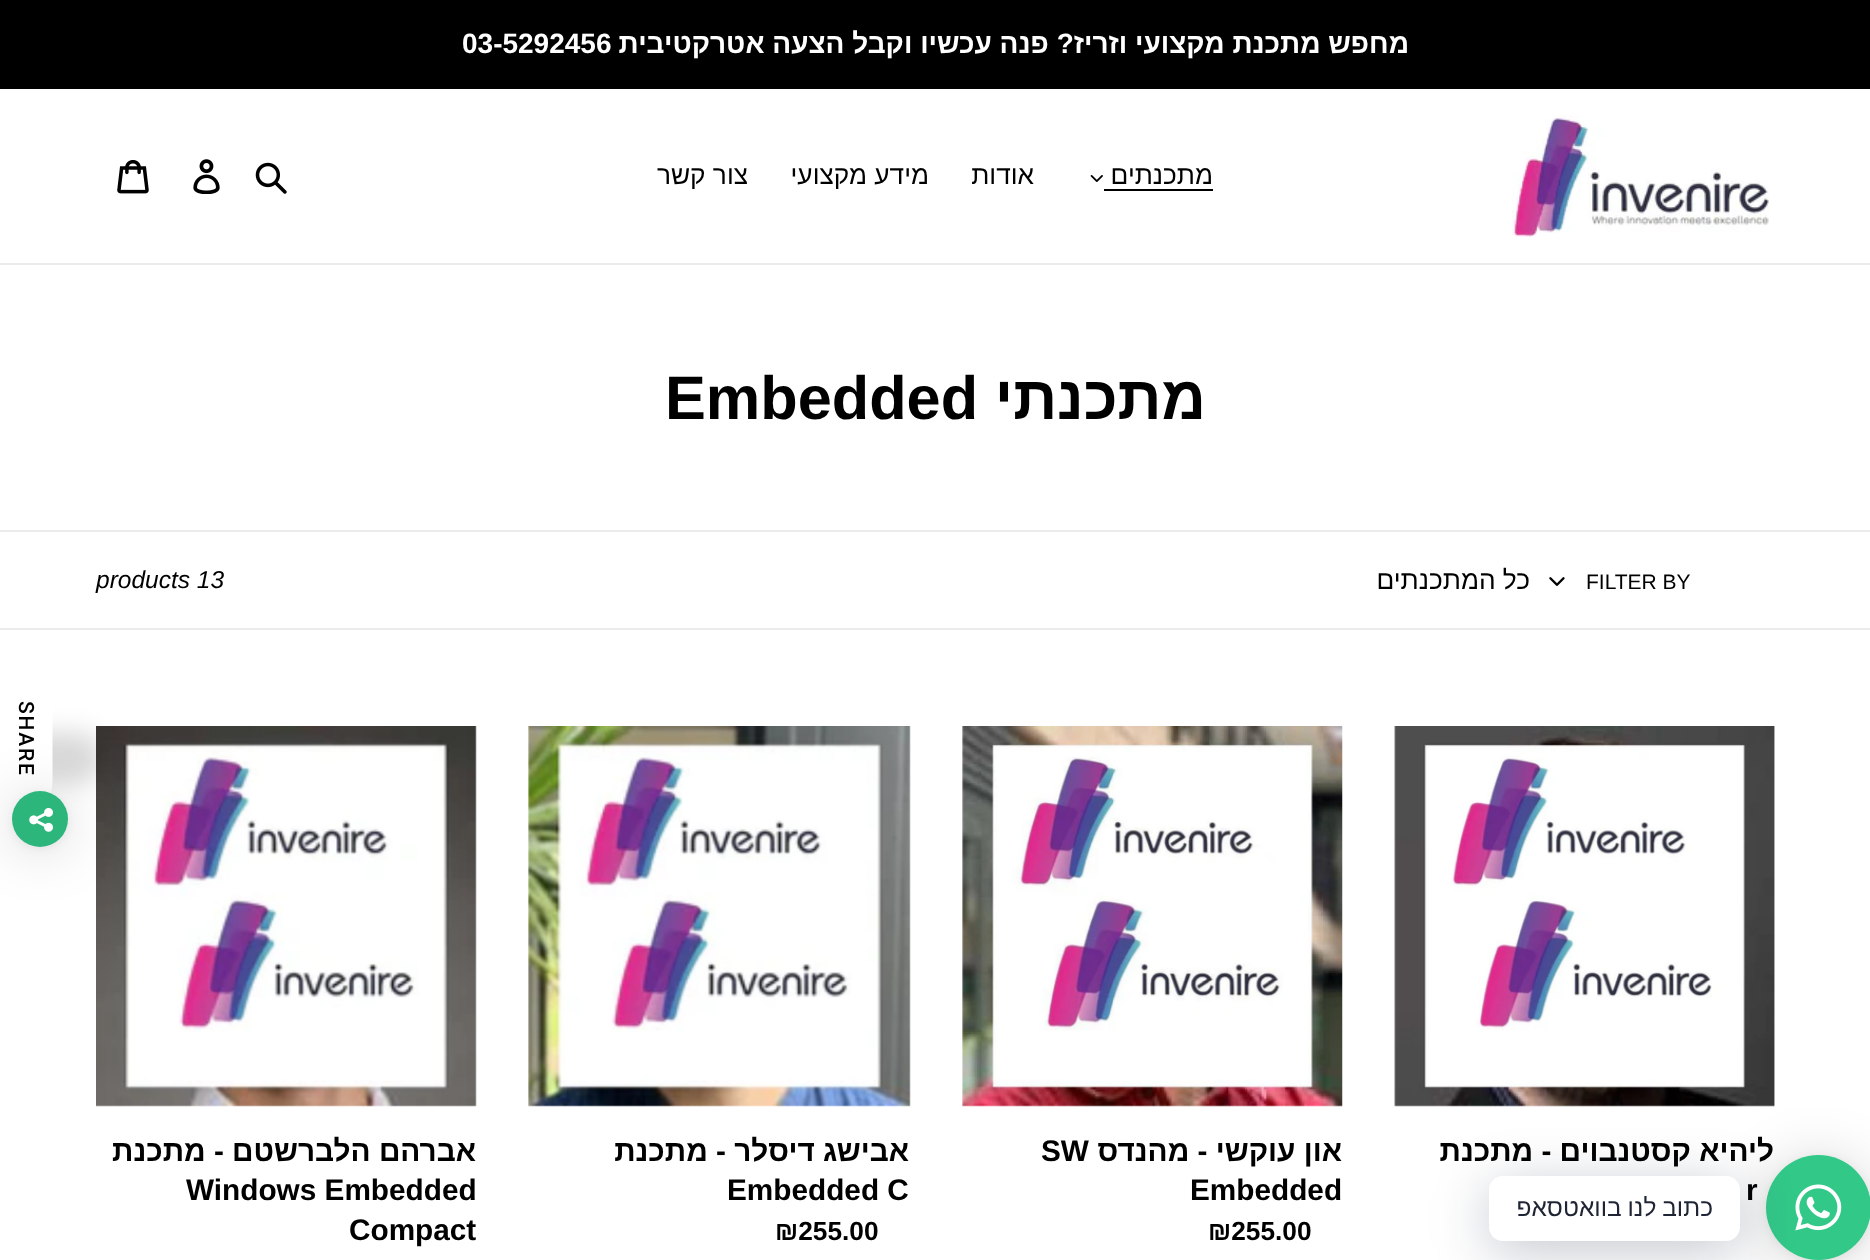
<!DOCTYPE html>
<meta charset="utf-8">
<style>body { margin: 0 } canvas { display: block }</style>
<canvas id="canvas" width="1870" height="1260"></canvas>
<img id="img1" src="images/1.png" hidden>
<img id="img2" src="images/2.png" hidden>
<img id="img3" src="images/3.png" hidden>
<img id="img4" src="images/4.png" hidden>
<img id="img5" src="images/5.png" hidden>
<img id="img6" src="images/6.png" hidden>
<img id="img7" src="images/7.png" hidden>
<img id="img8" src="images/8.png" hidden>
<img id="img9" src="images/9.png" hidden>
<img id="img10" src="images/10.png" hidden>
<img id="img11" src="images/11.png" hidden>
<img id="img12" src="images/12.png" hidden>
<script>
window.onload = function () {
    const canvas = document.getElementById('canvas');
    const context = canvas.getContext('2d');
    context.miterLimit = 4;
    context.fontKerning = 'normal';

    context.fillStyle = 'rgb(255, 255, 255)';
    context.fillRect(0, 0, 1870, 1260);
    context.fillStyle = 'rgb(0, 0, 0)';
    context.fillRect(0, 0, 1870, 89);
    context.fillStyle = 'rgb(235, 235, 235)';
    context.fillRect(0, 263, 1870, 2);
    context.drawImage(document.getElementById('img1'), 1512, 115, 257, 122);
    context.fillStyle = 'rgb(0, 0, 0)';
    context.fillRect(1104, 189, 109, 2);
    context.drawImage(document.getElementById('img2'), 1090, 175, 13, 7);
    context.drawImage(document.getElementById('img3'), 255, 162, 32, 32);
    context.drawImage(document.getElementById('img4'), 193, 159, 27, 35);
    context.drawImage(document.getElementById('img5'), 117, 160, 32, 34);
    context.fillStyle = 'rgb(235, 235, 235)';
    context.fillRect(0, 530, 1870, 2);
    context.fillRect(0, 628, 1870, 2);
    context.drawImage(document.getElementById('img6'), 1549, 577, 16, 9);
    context.drawImage(document.getElementById('img7'), 1394, 726, 381, 381);
    context.drawImage(document.getElementById('img8'), 962, 726, 381, 381);
    context.drawImage(document.getElementById('img9'), 528, 726, 383, 381);
    context.drawImage(document.getElementById('img10'), 96, 726, 381, 381);
    context.save();
    context.beginPath();
    context.moveTo(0, 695);
    context.lineTo(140, 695);
    context.lineTo(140, 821);
    context.lineTo(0, 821);
    context.closePath();
    context.moveTo(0, 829.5);
    context.lineTo(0, 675);
    context.lineTo(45.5, 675);
    context.bezierCurveTo(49.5, 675, 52.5, 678.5, 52.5, 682);
    context.lineTo(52.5, 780.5);
    context.bezierCurveTo(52.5, 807.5, 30.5, 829.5, 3.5, 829.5);
    context.closePath();
    context.clip('evenodd');
    context.fillStyle = 'rgba(0, 0, 0, 0.15)';
    context.filter = 'blur(12px)';
    context.beginPath();
    context.roundRect(-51, 732, 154, 52, 49);
    context.fill();
    context.filter = 'none';
    context.restore();
    context.fillStyle = 'rgba(0, 0, 0, 0.16)';
    context.filter = 'blur(28px)';
    context.beginPath();
    context.roundRect(12, 795, 56, 56, 28);
    context.fill();
    context.filter = 'none';
    context.fillStyle = 'rgba(0, 0, 0, 0.06)';
    context.filter = 'blur(5px)';
    context.beginPath();
    context.roundRect(12, 793, 56, 56, 28);
    context.fill();
    context.filter = 'none';
    context.fillStyle = 'rgb(45, 182, 124)';
    context.beginPath();
    context.arc(40, 819, 28, 0, 2 * Math.PI);
    context.fill();
    context.drawImage(document.getElementById('img11'), 29, 808, 24, 24);
    context.fillStyle = 'rgba(0, 0, 0, 0.16)';
    context.filter = 'blur(28px)';
    context.beginPath();
    context.roundRect(1766, 1159, 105, 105, 52.5);
    context.fill();
    context.filter = 'none';
    context.fillStyle = 'rgba(0, 0, 0, 0.06)';
    context.filter = 'blur(5px)';
    context.beginPath();
    context.roundRect(1766, 1157, 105, 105, 52.5);
    context.fill();
    context.filter = 'none';
    context.direction = 'rtl';
    context.font = 'bold 28px Liberation Sans';
    context.fillStyle = 'rgb(255, 255, 255)';
    context.fillText('מחפש מתכנת מקצועי וזריז? פנה עכשיו וקבל הצעה אטרקטיבית', 1409, 53);
    context.direction = 'ltr';
    context.fillText('03-5292456', 462, 53);
    context.direction = 'rtl';
    context.font = '26.25px Liberation Sans';
    context.fillStyle = 'rgb(0, 0, 0)';
    context.fillText('מתכנתים', 1213, 184);
    context.fillText('אודות', 1034, 184);
    context.fillText('מידע מקצועי', 929, 184);
    context.fillText('צור קשר', 748, 184);
    context.font = 'bold 61.25px Liberation Sans';
    context.fillText('מתכנתי', 1206, 419);
    context.direction = 'ltr';
    context.fillText('Embedded', 665, 419);
    context.font = '21px Liberation Sans';
    context.fillText('FILTER BY', 1586, 589);
    context.direction = 'rtl';
    context.font = '26.25px Liberation Sans';
    context.fillText('כל המתכנתים', 1530, 589);
    context.direction = 'ltr';
    context.font = 'italic 24.5px Liberation Sans';
    context.fillText('products 13', 96, 588);
    context.direction = 'rtl';
    context.font = 'bold 29.75px Liberation Sans';
    context.fillText('ליהיא קסטנבוים - מתכנת', 1774, 1161);
    context.direction = 'ltr';
    context.fillText('r', 1746, 1200);
    context.direction = 'rtl';
    context.fillText('און עוקשי - מהנדס', 1342, 1161);
    context.direction = 'ltr';
    context.fillText('SW', 1041, 1161);
    context.fillText('Embedded', 1190, 1200);
    context.font = 'bold 26.25px Liberation Sans';
    context.fillText('₪255.00', 1208, 1240);
    context.direction = 'rtl';
    context.font = 'bold 29.75px Liberation Sans';
    context.fillText('אבישג דיסלר - מתכנת', 909, 1161);
    context.direction = 'ltr';
    context.fillText('Embedded C', 727, 1200);
    context.font = 'bold 26.25px Liberation Sans';
    context.fillText('₪255.00', 775, 1240);
    context.direction = 'rtl';
    context.font = 'bold 29.75px Liberation Sans';
    context.fillText('אברהם הלברשטם - מתכנת', 476, 1161);
    context.direction = 'ltr';
    context.fillText('Windows Embedded', 186, 1200);
    context.fillText('Compact', 349, 1240);
    context.letterSpacing = '1.75px';
    context.font = '500 21px Roboto';
    context.save();
    context.translate(19, 701);
    context.rotate(90 * Math.PI / 180);
    context.fillText('SHARE', 0, 0);
    context.restore();
    context.fillStyle = 'rgb(50, 200, 136)';
    context.beginPath();
    context.arc(1818.5, 1207.5, 52.5, 0, 2 * Math.PI);
    context.fill();
    context.fillStyle = 'rgba(0, 18, 46, 0.24)';
    context.filter = 'blur(28px)';
    context.beginPath();
    context.roundRect(1489, 1187, 251, 64, 14);
    context.fill();
    context.filter = 'none';
    context.drawImage(document.getElementById('img12'), 1795, 1184, 47, 47);
    context.fillStyle = 'rgb(255, 255, 255)';
    context.beginPath();
    context.roundRect(1489, 1176, 251, 65, 14);
    context.fill();
    context.letterSpacing = '0px';
    context.wordSpacing = '-1px';
    context.direction = 'rtl';
    context.font = '24.5px Liberation Sans';
    context.fillStyle = 'rgb(30, 36, 51)';
    context.fillText('כתוב לנו בוואטסאפ', 1713, 1216);
};
</script>
